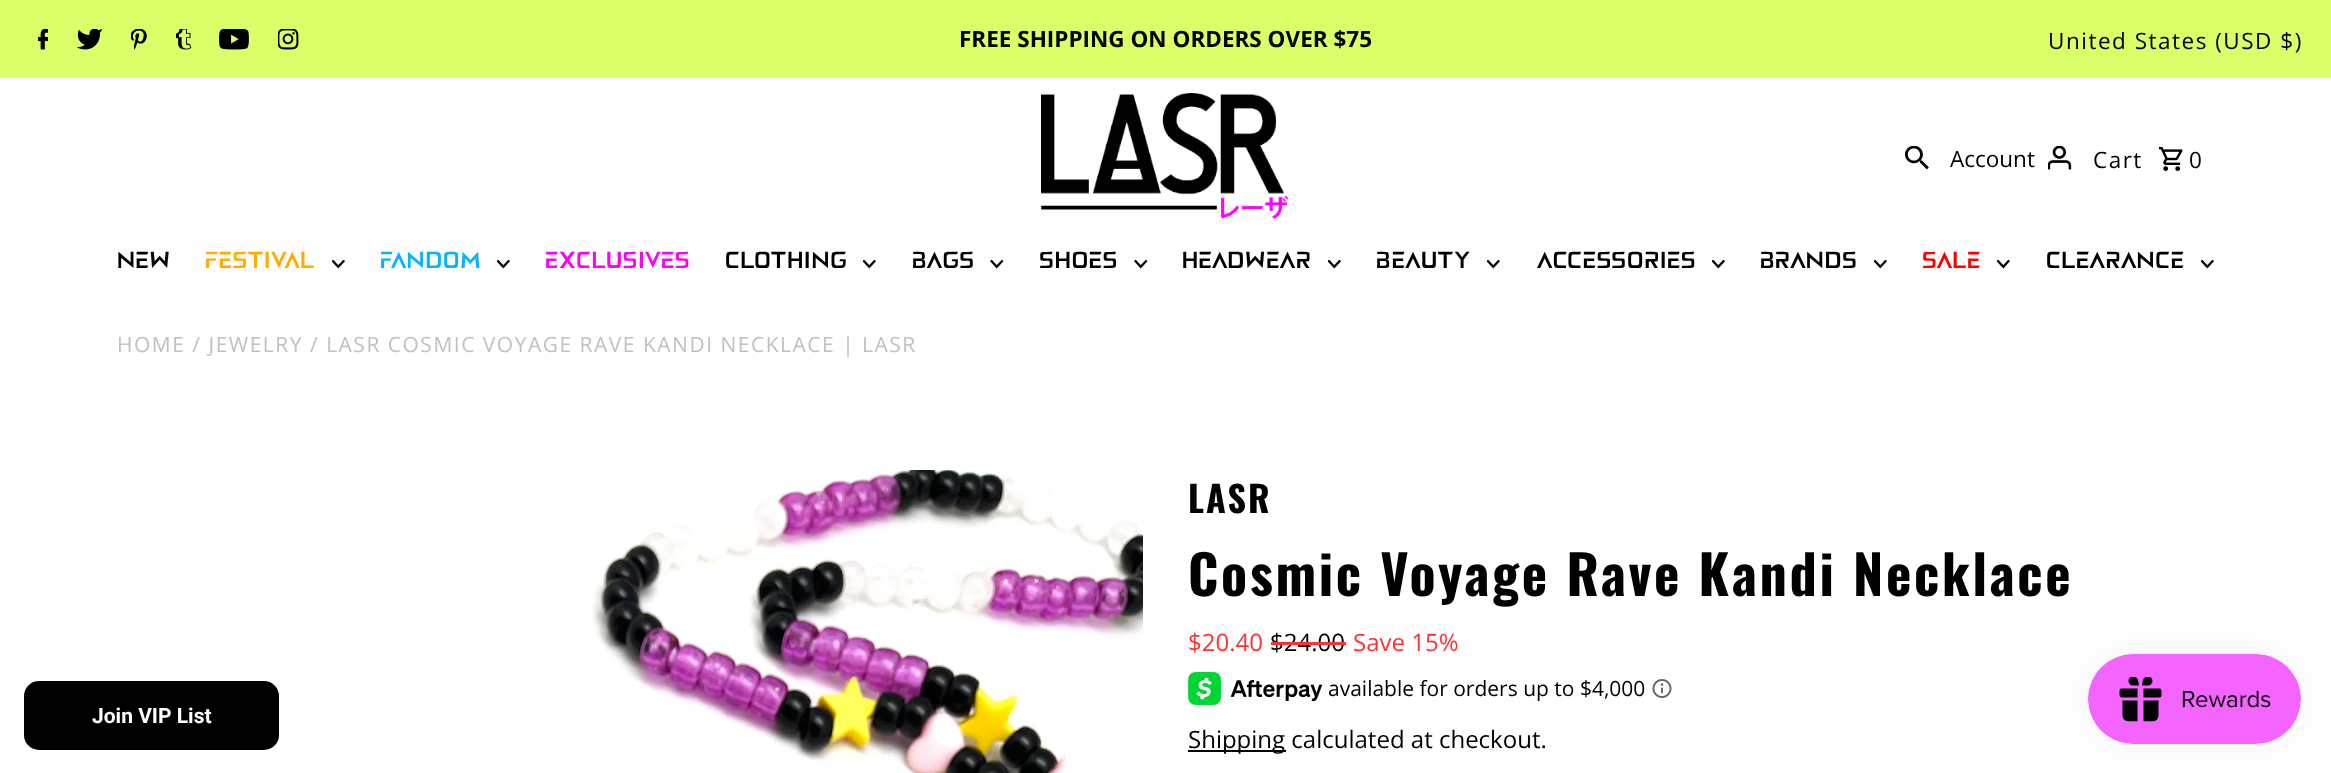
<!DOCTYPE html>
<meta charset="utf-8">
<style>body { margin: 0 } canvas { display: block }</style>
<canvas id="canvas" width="2331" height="773"></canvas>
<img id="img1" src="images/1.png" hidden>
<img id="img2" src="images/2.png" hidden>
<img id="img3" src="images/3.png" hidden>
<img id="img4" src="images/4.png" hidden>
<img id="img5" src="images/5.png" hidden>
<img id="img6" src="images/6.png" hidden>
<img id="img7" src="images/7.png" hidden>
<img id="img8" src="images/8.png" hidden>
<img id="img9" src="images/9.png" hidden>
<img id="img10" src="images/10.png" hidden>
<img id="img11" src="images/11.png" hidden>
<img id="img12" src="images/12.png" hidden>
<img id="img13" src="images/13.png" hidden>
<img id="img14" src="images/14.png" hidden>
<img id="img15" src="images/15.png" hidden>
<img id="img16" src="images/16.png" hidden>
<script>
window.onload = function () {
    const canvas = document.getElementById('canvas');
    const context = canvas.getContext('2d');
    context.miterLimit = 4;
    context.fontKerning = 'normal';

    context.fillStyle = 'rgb(255, 255, 255)';
    context.fillRect(0, 0, 2331, 773);
    context.fillStyle = 'rgb(219, 255, 105)';
    context.fillRect(0, 0, 2331, 78);
    context.drawImage(document.getElementById('img1'), 38, 29, 10, 21);
    context.drawImage(document.getElementById('img2'), 77, 29, 25, 21);
    context.drawImage(document.getElementById('img3'), 131, 29, 16, 21);
    context.drawImage(document.getElementById('img4'), 176, 29, 16, 21);
    context.drawImage(document.getElementById('img5'), 219, 29, 30, 21);
    context.drawImage(document.getElementById('img6'), 278, 29, 21, 21);
    context.drawImage(document.getElementById('img7'), 1041, 93, 248, 126);
    context.drawImage(document.getElementById('img8'), 1905, 146, 24, 24);
    context.drawImage(document.getElementById('img9'), 2048, 146, 24, 24);
    context.drawImage(document.getElementById('img10'), 2159, 147, 24, 24);
    context.drawImage(document.getElementById('img11'), 332, 260, 13, 9);
    context.drawImage(document.getElementById('img11'), 497, 260, 13, 9);
    context.drawImage(document.getElementById('img11'), 863, 260, 13, 9);
    context.drawImage(document.getElementById('img12'), 990, 260, 14, 9);
    context.drawImage(document.getElementById('img12'), 1134, 260, 14, 9);
    context.drawImage(document.getElementById('img11'), 1328, 260, 13, 9);
    context.drawImage(document.getElementById('img11'), 1487, 260, 13, 9);
    context.drawImage(document.getElementById('img11'), 1712, 260, 13, 9);
    context.drawImage(document.getElementById('img11'), 1874, 260, 13, 9);
    context.drawImage(document.getElementById('img11'), 1997, 260, 13, 9);
    context.drawImage(document.getElementById('img11'), 2201, 260, 13, 9);
    context.drawImage(document.getElementById('img13'), 592, 470, 551, 303);
    context.drawImage(document.getElementById('img14'), 1188, 672, 135, 33);
    context.drawImage(document.getElementById('img15'), 1652, 679, 20, 19);
    context.fillStyle = 'rgb(0, 0, 0)';
    context.fillRect(1188, 750, 98, 2);
    context.beginPath();
    context.roundRect(24, 681, 255, 69, 15);
    context.fill();
    context.fillStyle = 'rgba(0, 0, 0, 0.05)';
    context.filter = 'blur(19px)';
    context.beginPath();
    context.roundRect(2088, 654, 213, 90, 45);
    context.fill();
    context.filter = 'none';
    context.drawImage(document.getElementById('img16'), 2088, 654, 213, 90);
    context.font = 'bold 22.5px Open Sans';
    context.fillStyle = 'rgb(0, 0, 0)';
    context.fillText('FREE SHIPPING ON ORDERS OVER $75', 959, 47);
    context.letterSpacing = '1.5px';
    context.font = '22.5px Open Sans';
    context.fillText('United States (USD $)', 2048, 49);
    context.letterSpacing = '0px';
    context.fillText('Account', 1950, 167);
    context.letterSpacing = '1.5px';
    context.fillText('Cart', 2093, 168);
    context.fillText('0', 2189, 168);
    context.letterSpacing = '0px';
    context.font = 'bold 22.5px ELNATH';
    context.fillText('NEW', 117, 268);
    context.fillStyle = 'rgb(255, 171, 4)';
    context.fillText('FESTIVAL', 205, 268);
    context.fillStyle = 'rgb(5, 182, 255)';
    context.fillText('FANDOM', 380, 268);
    context.fillStyle = 'rgb(255, 0, 245)';
    context.fillText('EXCLUSIVES', 545, 268);
    context.fillStyle = 'rgb(0, 0, 0)';
    context.fillText('CLOTHING', 725, 268);
    context.fillText('BAGS', 912, 268);
    context.fillText('SHOES', 1039, 268);
    context.fillText('HEADWEAR', 1182, 268);
    context.fillText('BEAUTY', 1376, 268);
    context.fillText('ACCESSORIES', 1536, 268);
    context.fillText('BRANDS', 1760, 268);
    context.fillStyle = 'rgb(255, 0, 0)';
    context.fillText('SALE', 1922, 268);
    context.fillStyle = 'rgb(0, 0, 0)';
    context.fillText('CLEARANCE', 2046, 268);
    context.letterSpacing = '1.5px';
    context.font = '21px Open Sans';
    context.fillStyle = 'rgb(193, 193, 193)';
    context.fillText('HOME / JEWELRY / LASR COSMIC VOYAGE RAVE KANDI NECKLACE | LASR', 117, 352);
    context.letterSpacing = '2px';
    context.font = 'bold 36px Oswald';
    context.fillStyle = 'rgb(0, 0, 0)';
    context.fillText('LASR', 1188, 513);
    context.letterSpacing = '2.7px';
    context.font = 'bold 54px Oswald';
    context.fillText('Cosmic Voyage Rave Kandi Necklace', 1188, 596);
    context.letterSpacing = '0px';
    context.font = '24px Open Sans';
    context.fillStyle = 'rgb(255, 49, 49)';
    context.fillText('$20.40', 1188, 651);
    context.fillStyle = 'rgb(0, 0, 0)';
    context.fillText('$24.00', 1270, 651);
    context.fillStyle = 'rgb(255, 49, 49)';
    context.fillRect(1271, 642, 75, 3);
    context.fillText('Save 15%', 1353, 651);
    context.font = '21px Open Sans';
    context.fillStyle = 'rgb(0, 0, 0)';
    context.fillText('available for orders up to $4,000', 1328, 696);
    context.font = '24px Open Sans';
    context.fillText('Shipping calculated at checkout.', 1188, 748);
    context.font = 'bold 21px Roboto';
    context.fillStyle = 'rgb(255, 255, 255)';
    context.fillText('Join VIP List', 92, 723);
};
</script>
